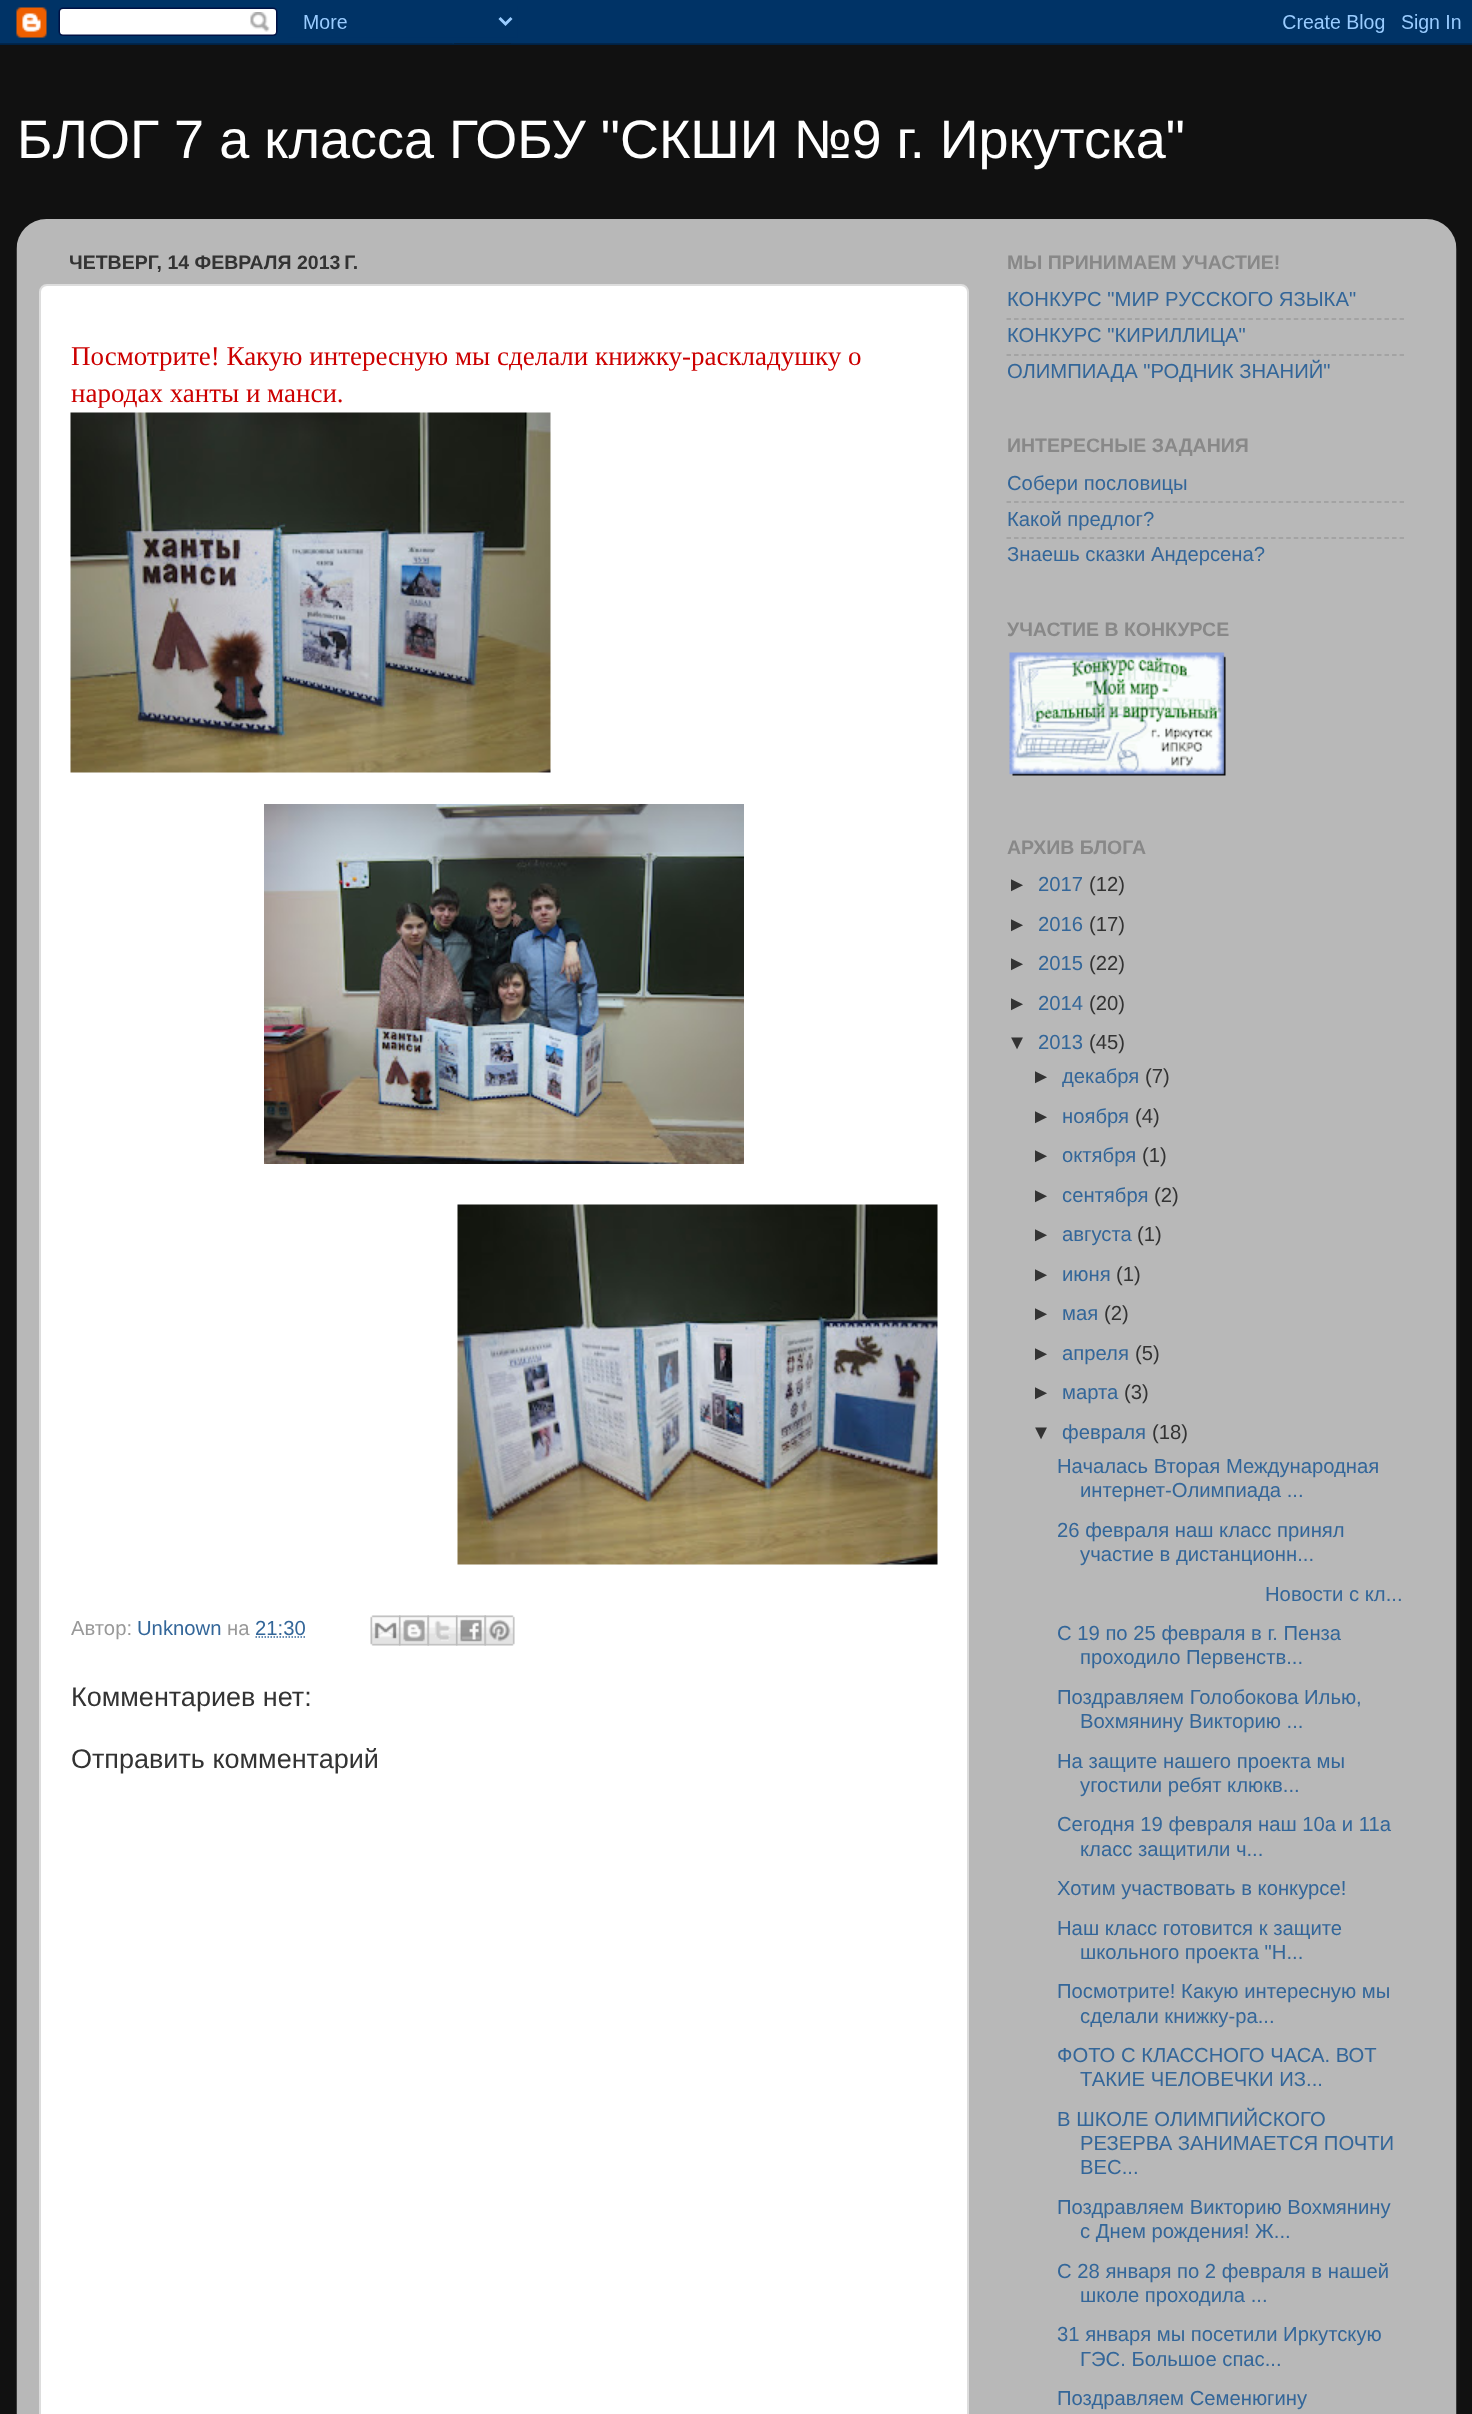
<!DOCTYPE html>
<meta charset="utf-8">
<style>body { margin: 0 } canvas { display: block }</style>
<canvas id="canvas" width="1472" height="2414"></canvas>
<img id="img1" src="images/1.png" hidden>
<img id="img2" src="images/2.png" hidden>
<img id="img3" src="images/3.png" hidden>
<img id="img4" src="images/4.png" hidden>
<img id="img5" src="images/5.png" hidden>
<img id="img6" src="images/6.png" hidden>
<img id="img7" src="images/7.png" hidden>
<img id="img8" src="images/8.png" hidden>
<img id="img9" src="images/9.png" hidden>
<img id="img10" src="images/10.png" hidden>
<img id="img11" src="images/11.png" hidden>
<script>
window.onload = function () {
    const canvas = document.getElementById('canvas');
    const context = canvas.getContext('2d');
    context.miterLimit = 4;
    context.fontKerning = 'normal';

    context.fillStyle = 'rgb(17, 17, 17)';
    context.fillRect(0, 0, 1472, 2414);
    context.drawImage(document.getElementById('img1'), 0, 0, 1472, 45);
    context.drawImage(document.getElementById('img2'), 16, 219, 1441, 2195);
    context.fillStyle = 'rgb(255, 255, 255)';
    context.beginPath();
    context.roundRect(40, 285, 928, 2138, 7);
    context.fill();
    context.strokeStyle = 'rgb(221, 221, 221)';
    context.lineWidth = 2;
    context.stroke();
    context.drawImage(document.getElementById('img3'), 70, 412, 481, 361);
    context.drawImage(document.getElementById('img4'), 264, 804, 480, 360);
    context.drawImage(document.getElementById('img5'), 457, 1204, 481, 361);
    context.beginPath();
    context.moveTo(255.5, 1637);
    context.lineTo(306, 1637);
    context.strokeStyle = 'rgb(51, 102, 153)';
    context.lineWidth = 1.5;
    context.setLineDash([1.5, 1.5]);
    context.stroke();
    context.drawImage(document.getElementById('img6'), 370, 1615, 31, 31);
    context.drawImage(document.getElementById('img7'), 399, 1615, 30, 31);
    context.drawImage(document.getElementById('img8'), 427, 1615, 31, 31);
    context.drawImage(document.getElementById('img9'), 456, 1615, 30, 31);
    context.drawImage(document.getElementById('img10'), 484, 1615, 31, 31);
    context.beginPath();
    context.moveTo(1006.5, 319);
    context.lineTo(1404, 319);
    context.strokeStyle = 'rgb(156, 156, 156)';
    context.setLineDash([4.5, 3.06]);
    context.stroke();
    context.beginPath();
    context.moveTo(1006.5, 355);
    context.lineTo(1404, 355);
    context.stroke();
    context.beginPath();
    context.moveTo(1006.5, 502);
    context.lineTo(1404, 502);
    context.stroke();
    context.beginPath();
    context.moveTo(1006.5, 538);
    context.lineTo(1404, 538);
    context.stroke();
    context.drawImage(document.getElementById('img11'), 1009, 652, 217, 124);
    context.font = '54px Liberation Sans';
    context.fillText('БЛОГ 7 а класса ГОБУ "СКШИ №9 г. Иркутска"', 17, 158);
    context.font = 'bold 19.5px Liberation Sans';
    context.fillStyle = 'rgb(51, 51, 51)';
    context.fillText('ЧЕТВЕРГ, 14 ФЕВРАЛЯ 2013 Г.', 69, 269);
    context.font = '27px Liberation Serif';
    context.fillStyle = 'rgb(204, 0, 0)';
    context.fillText('Посмотрите! Какую интересную мы сделали книжку-раскладушку о', 71, 365);
    context.fillText('народах ханты и манси.', 71, 402);
    context.font = '20.25px Liberation Sans';
    context.fillStyle = 'rgb(153, 153, 153)';
    context.fillText('Автор:', 71, 1635);
    context.fillStyle = 'rgb(51, 102, 153)';
    context.fillText('Unknown', 137, 1635);
    context.fillStyle = 'rgb(153, 153, 153)';
    context.fillText('на', 227, 1635);
    context.fillStyle = 'rgb(51, 102, 153)';
    context.fillText('21:30', 255, 1635);
    context.font = '27px Liberation Sans';
    context.fillStyle = 'rgb(51, 51, 51)';
    context.fillText('Комментариев нет:', 71, 1706);
    context.fillText('Отправить комментарий', 71, 1768);
    context.font = 'bold 19.5px Liberation Sans';
    context.fillStyle = 'rgb(136, 136, 136)';
    context.fillText('МЫ ПРИНИМАЕМ УЧАСТИЕ!', 1007, 269);
    context.font = '20.25px Liberation Sans';
    context.fillStyle = 'rgb(51, 102, 153)';
    context.fillText('КОНКУРС "МИР РУССКОГО ЯЗЫКА"', 1007, 306);
    context.fillText('КОНКУРС "КИРИЛЛИЦА"', 1007, 342);
    context.fillText('ОЛИМПИАДА "РОДНИК ЗНАНИЙ"', 1007, 378);
    context.font = 'bold 19.5px Liberation Sans';
    context.fillStyle = 'rgb(136, 136, 136)';
    context.fillText('ИНТЕРЕСНЫЕ ЗАДАНИЯ', 1007, 452);
    context.font = '20.25px Liberation Sans';
    context.fillStyle = 'rgb(51, 102, 153)';
    context.fillText('Собери пословицы', 1007, 490);
    context.fillText('Какой предлог?', 1007, 526);
    context.fillText('Знаешь сказки Андерсена?', 1007, 561);
    context.font = 'bold 19.5px Liberation Sans';
    context.fillStyle = 'rgb(136, 136, 136)';
    context.fillText('УЧАСТИЕ В КОНКУРСЕ', 1007, 636);
    context.fillText('АРХИВ БЛОГА', 1007, 854);
    context.font = '20.25px Liberation Sans';
    context.fillStyle = 'rgb(51, 51, 51)';
    context.fillText('►', 1007, 891);
    context.fillStyle = 'rgb(51, 102, 153)';
    context.fillText('2017', 1038, 891);
    context.fillStyle = 'rgb(51, 51, 51)';
    context.fillText('(12)', 1089, 891);
    context.fillText('►', 1007, 931);
    context.fillStyle = 'rgb(51, 102, 153)';
    context.fillText('2016', 1038, 931);
    context.fillStyle = 'rgb(51, 51, 51)';
    context.fillText('(17)', 1089, 931);
    context.fillText('►', 1007, 970);
    context.fillStyle = 'rgb(51, 102, 153)';
    context.fillText('2015', 1038, 970);
    context.fillStyle = 'rgb(51, 51, 51)';
    context.fillText('(22)', 1089, 970);
    context.fillText('►', 1007, 1010);
    context.fillStyle = 'rgb(51, 102, 153)';
    context.fillText('2014', 1038, 1010);
    context.fillStyle = 'rgb(51, 51, 51)';
    context.fillText('(20)', 1089, 1010);
    context.fillText('▼', 1007, 1049);
    context.fillStyle = 'rgb(51, 102, 153)';
    context.fillText('2013', 1038, 1049);
    context.fillStyle = 'rgb(51, 51, 51)';
    context.fillText('(45)', 1089, 1049);
    context.fillText('►', 1031, 1083);
    context.fillStyle = 'rgb(51, 102, 153)';
    context.fillText('декабря', 1062, 1083);
    context.fillStyle = 'rgb(51, 51, 51)';
    context.fillText('(7)', 1145, 1083);
    context.fillText('►', 1031, 1123);
    context.fillStyle = 'rgb(51, 102, 153)';
    context.fillText('ноября', 1062, 1123);
    context.fillStyle = 'rgb(51, 51, 51)';
    context.fillText('(4)', 1135, 1123);
    context.fillText('►', 1031, 1162);
    context.fillStyle = 'rgb(51, 102, 153)';
    context.fillText('октября', 1062, 1162);
    context.fillStyle = 'rgb(51, 51, 51)';
    context.fillText('(1)', 1142, 1162);
    context.fillText('►', 1031, 1202);
    context.fillStyle = 'rgb(51, 102, 153)';
    context.fillText('сентября', 1062, 1202);
    context.fillStyle = 'rgb(51, 51, 51)';
    context.fillText('(2)', 1154, 1202);
    context.fillText('►', 1031, 1241);
    context.fillStyle = 'rgb(51, 102, 153)';
    context.fillText('августа', 1062, 1241);
    context.fillStyle = 'rgb(51, 51, 51)';
    context.fillText('(1)', 1137, 1241);
    context.fillText('►', 1031, 1281);
    context.fillStyle = 'rgb(51, 102, 153)';
    context.fillText('июня', 1062, 1281);
    context.fillStyle = 'rgb(51, 51, 51)';
    context.fillText('(1)', 1116, 1281);
    context.fillText('►', 1031, 1320);
    context.fillStyle = 'rgb(51, 102, 153)';
    context.fillText('мая', 1062, 1320);
    context.fillStyle = 'rgb(51, 51, 51)';
    context.fillText('(2)', 1104, 1320);
    context.fillText('►', 1031, 1360);
    context.fillStyle = 'rgb(51, 102, 153)';
    context.fillText('апреля', 1062, 1360);
    context.fillStyle = 'rgb(51, 51, 51)';
    context.fillText('(5)', 1135, 1360);
    context.fillText('►', 1031, 1399);
    context.fillStyle = 'rgb(51, 102, 153)';
    context.fillText('марта', 1062, 1399);
    context.fillStyle = 'rgb(51, 51, 51)';
    context.fillText('(3)', 1124, 1399);
    context.fillText('▼', 1031, 1439);
    context.fillStyle = 'rgb(51, 102, 153)';
    context.fillText('февраля', 1062, 1439);
    context.fillStyle = 'rgb(51, 51, 51)';
    context.fillText('(18)', 1152, 1439);
    context.fillStyle = 'rgb(51, 102, 153)';
    context.fillText('Началась Вторая Международная', 1057, 1473);
    context.fillText('интернет-Олимпиада ...', 1080, 1497);
    context.fillText('26 февраля наш класс принял', 1057, 1537);
    context.fillText('участие в дистанционн...', 1080, 1561);
    context.fillText('Новости с кл...', 1265, 1601);
    context.fillText('С 19 по 25 февраля в г. Пенза', 1057, 1640);
    context.fillText('проходило Первенств...', 1080, 1664);
    context.fillText('Поздравляем Голобокова Илью,', 1057, 1704);
    context.fillText('Вохмянину Викторию ...', 1080, 1728);
    context.fillText('На защите нашего проекта мы', 1057, 1768);
    context.fillText('угостили ребят клюкв...', 1080, 1792);
    context.fillText('Сегодня 19 февраля наш 10а и 11а', 1057, 1831);
    context.fillText('класс защитили ч...', 1080, 1856);
    context.fillText('Хотим участвовать в конкурсе!', 1057, 1895);
    context.fillText('Наш класс готовится к защите', 1057, 1935);
    context.fillText('школьного проекта "Н...', 1080, 1959);
    context.fillText('Посмотрите! Какую интересную мы', 1057, 1998);
    context.fillText('сделали книжку-ра...', 1080, 2023);
    context.fillText('ФОТО С КЛАССНОГО ЧАСА. ВОТ', 1057, 2062);
    context.fillText('ТАКИЕ ЧЕЛОВЕЧКИ ИЗ...', 1080, 2086);
    context.fillText('В ШКОЛЕ ОЛИМПИЙСКОГО', 1057, 2126);
    context.fillText('РЕЗЕРВА ЗАНИМАЕТСЯ ПОЧТИ', 1080, 2150);
    context.fillText('ВЕС...', 1080, 2174);
    context.fillText('Поздравляем Викторию Вохмянину', 1057, 2214);
    context.fillText('с Днем рождения! Ж...', 1080, 2238);
    context.fillText('С 28 января по 2 февраля в нашей', 1057, 2278);
    context.fillText('школе проходила ...', 1080, 2302);
    context.fillText('31 января мы посетили Иркутскую', 1057, 2341);
    context.fillText('ГЭС. Большое спас...', 1080, 2366);
    context.fillText('Поздравляем Семенюгину', 1057, 2405);
};
</script>
